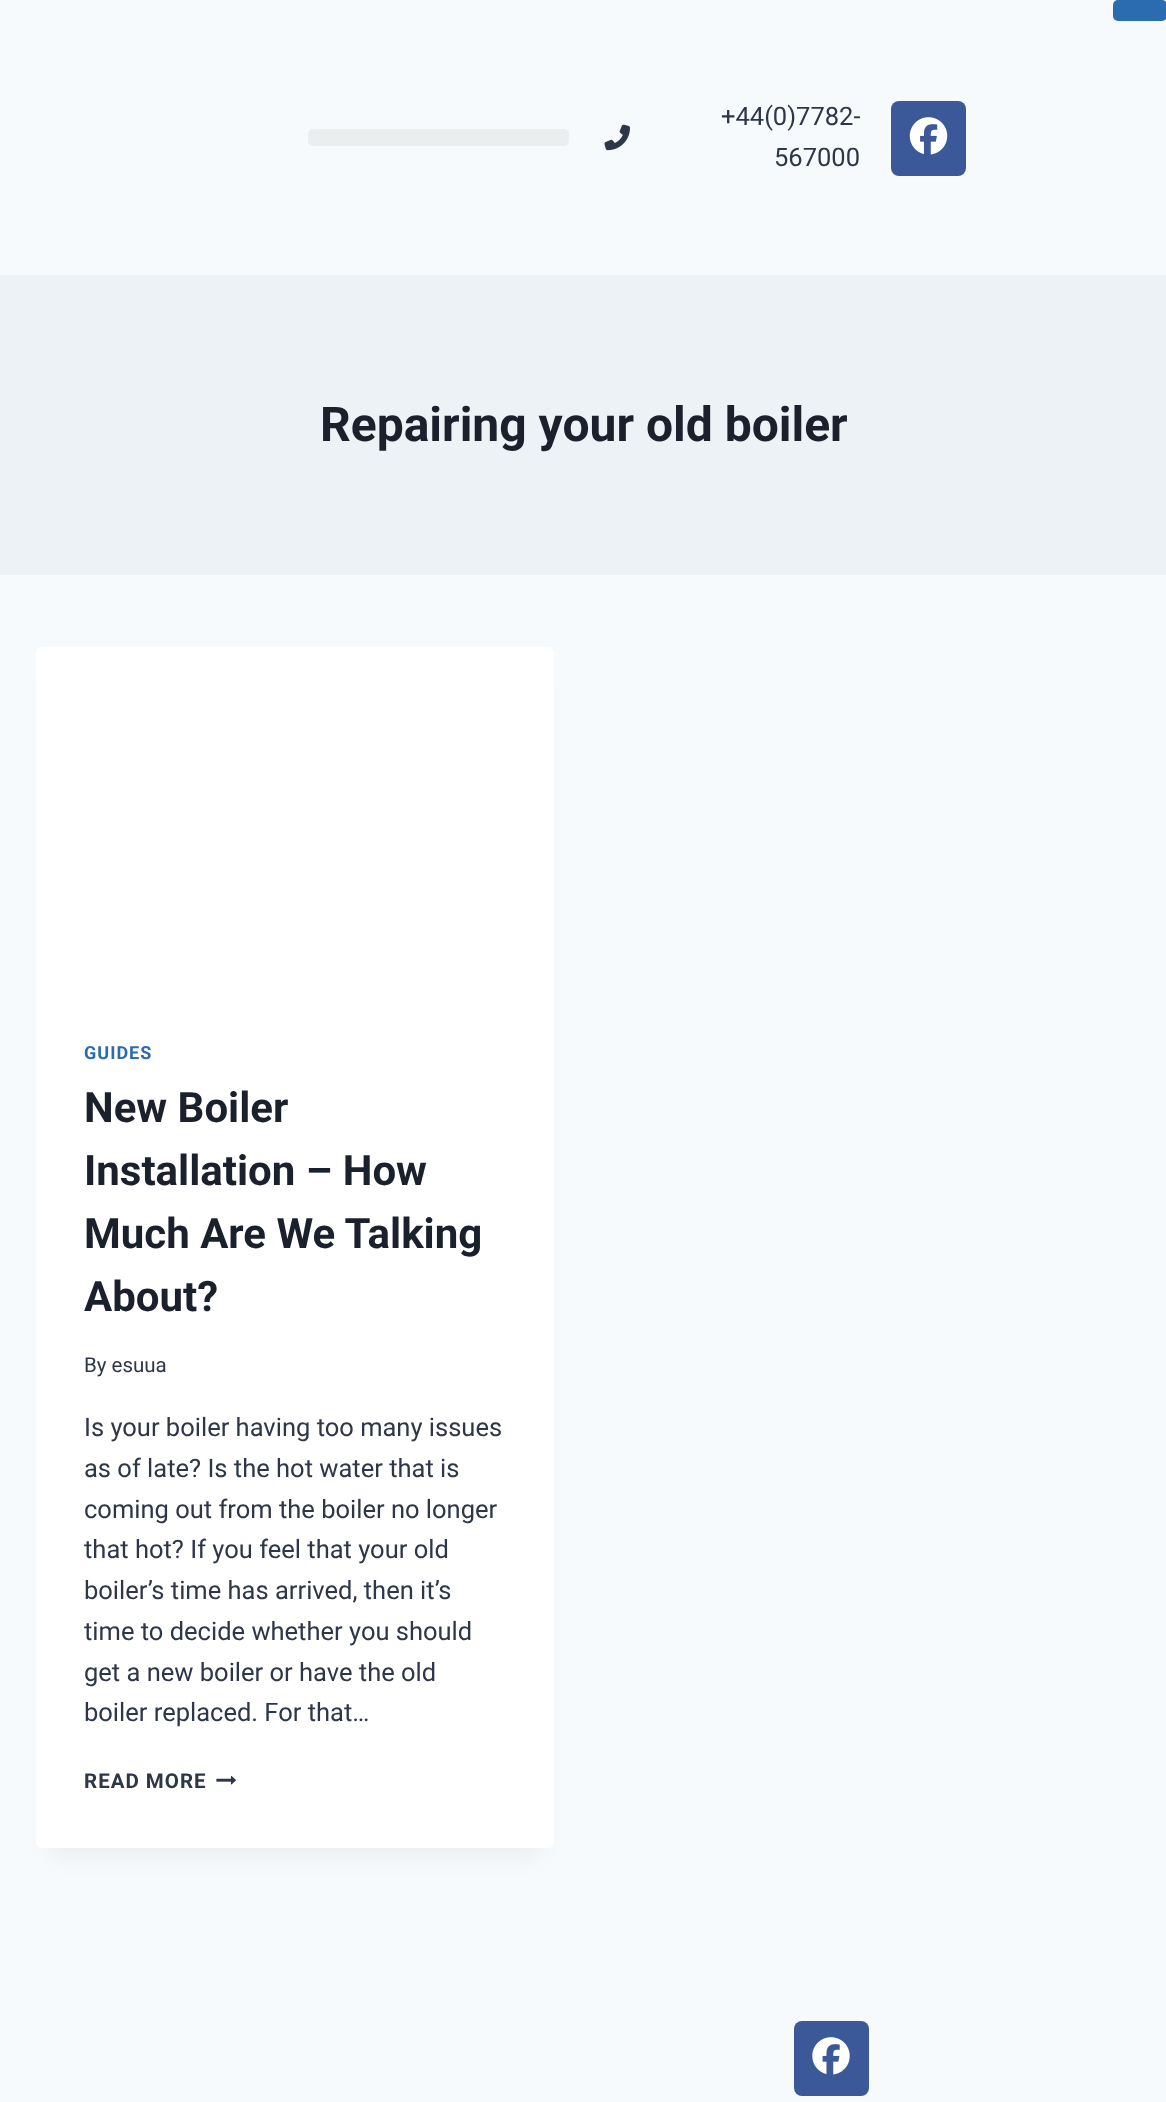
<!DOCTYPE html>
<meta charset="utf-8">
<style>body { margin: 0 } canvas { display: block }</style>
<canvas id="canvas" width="1166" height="2102"></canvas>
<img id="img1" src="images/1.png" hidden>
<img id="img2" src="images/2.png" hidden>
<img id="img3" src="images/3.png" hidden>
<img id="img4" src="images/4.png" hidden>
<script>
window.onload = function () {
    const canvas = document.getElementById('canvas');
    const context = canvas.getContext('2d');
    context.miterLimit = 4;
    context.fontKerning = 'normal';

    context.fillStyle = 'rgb(247, 250, 252)';
    context.fillRect(0, 0, 1166, 2102);
    context.fillStyle = 'rgb(43, 108, 176)';
    context.beginPath();
    context.roundRect(1113, 0, 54, 21, 5);
    context.fill();
    context.fillStyle = 'rgb(235, 238, 239)';
    context.beginPath();
    context.roundRect(308, 129, 261, 17, 5);
    context.fill();
    context.drawImage(document.getElementById('img1'), 604, 124, 26, 27);
    context.fillStyle = 'rgb(59, 89, 152)';
    context.beginPath();
    context.roundRect(891, 101, 75, 75, 8);
    context.fill();
    context.drawImage(document.getElementById('img2'), 909, 117, 39, 38);
    context.fillStyle = 'rgb(237, 242, 247)';
    context.fillRect(0, 275, 1166, 300);
    context.fillStyle = 'rgba(0, 0, 0, 0.05)';
    context.filter = 'blur(11px)';
    context.beginPath();
    context.rect(51, 684, 488, 1172);
    context.fill();
    context.filter = 'none';
    context.fillStyle = 'rgb(255, 255, 255)';
    context.beginPath();
    context.roundRect(36, 647, 518, 1201, 6);
    context.fill();
    context.drawImage(document.getElementById('img3'), 216, 1775, 20, 10);
    context.fillStyle = 'rgb(59, 89, 152)';
    context.beginPath();
    context.roundRect(794, 2021, 75, 75, 8);
    context.fill();
    context.drawImage(document.getElementById('img4'), 812, 2037, 38, 38);
    context.font = '25.5px Roboto';
    context.fillStyle = 'rgb(45, 55, 72)';
    context.fillText('+44(0)7782-', 721, 125);
    context.fillText('567000', 774, 166);
    context.font = 'bold 48px Roboto';
    context.fillStyle = 'rgb(26, 32, 44)';
    context.fillText('Repairing your old boiler', 320, 441);
    context.letterSpacing = '1px';
    context.font = 'bold 18px Roboto';
    context.fillStyle = 'rgb(43, 108, 176)';
    context.fillText('GUIDES', 84, 1059);
    context.letterSpacing = '0px';
    context.font = 'bold 42px Roboto';
    context.fillStyle = 'rgb(26, 32, 44)';
    context.fillText('New Boiler', 84, 1122);
    context.fillText('Installation – How', 84, 1185);
    context.fillText('Much Are We Talking', 84, 1248);
    context.fillText('About?', 84, 1311);
    context.font = '20.5px Roboto';
    context.fillStyle = 'rgb(45, 55, 72)';
    context.fillText('By esuua', 84, 1372);
    context.font = '25.5px Roboto';
    context.fillText('Is your boiler having too many issues', 84, 1436);
    context.fillText('as of late? Is the hot water that is', 84, 1477);
    context.fillText('coming out from the boiler no longer', 84, 1518);
    context.fillText('that hot? If you feel that your old', 84, 1558);
    context.fillText('boiler’s time has arrived, then it’s', 84, 1599);
    context.fillText('time to decide whether you should', 84, 1640);
    context.fillText('get a new boiler or have the old', 84, 1681);
    context.fillText('boiler replaced. For that…', 84, 1721);
    context.letterSpacing = '1px';
    context.font = 'bold 20.5px Roboto';
    context.fillText('READ MORE', 84, 1788);
};
</script>
